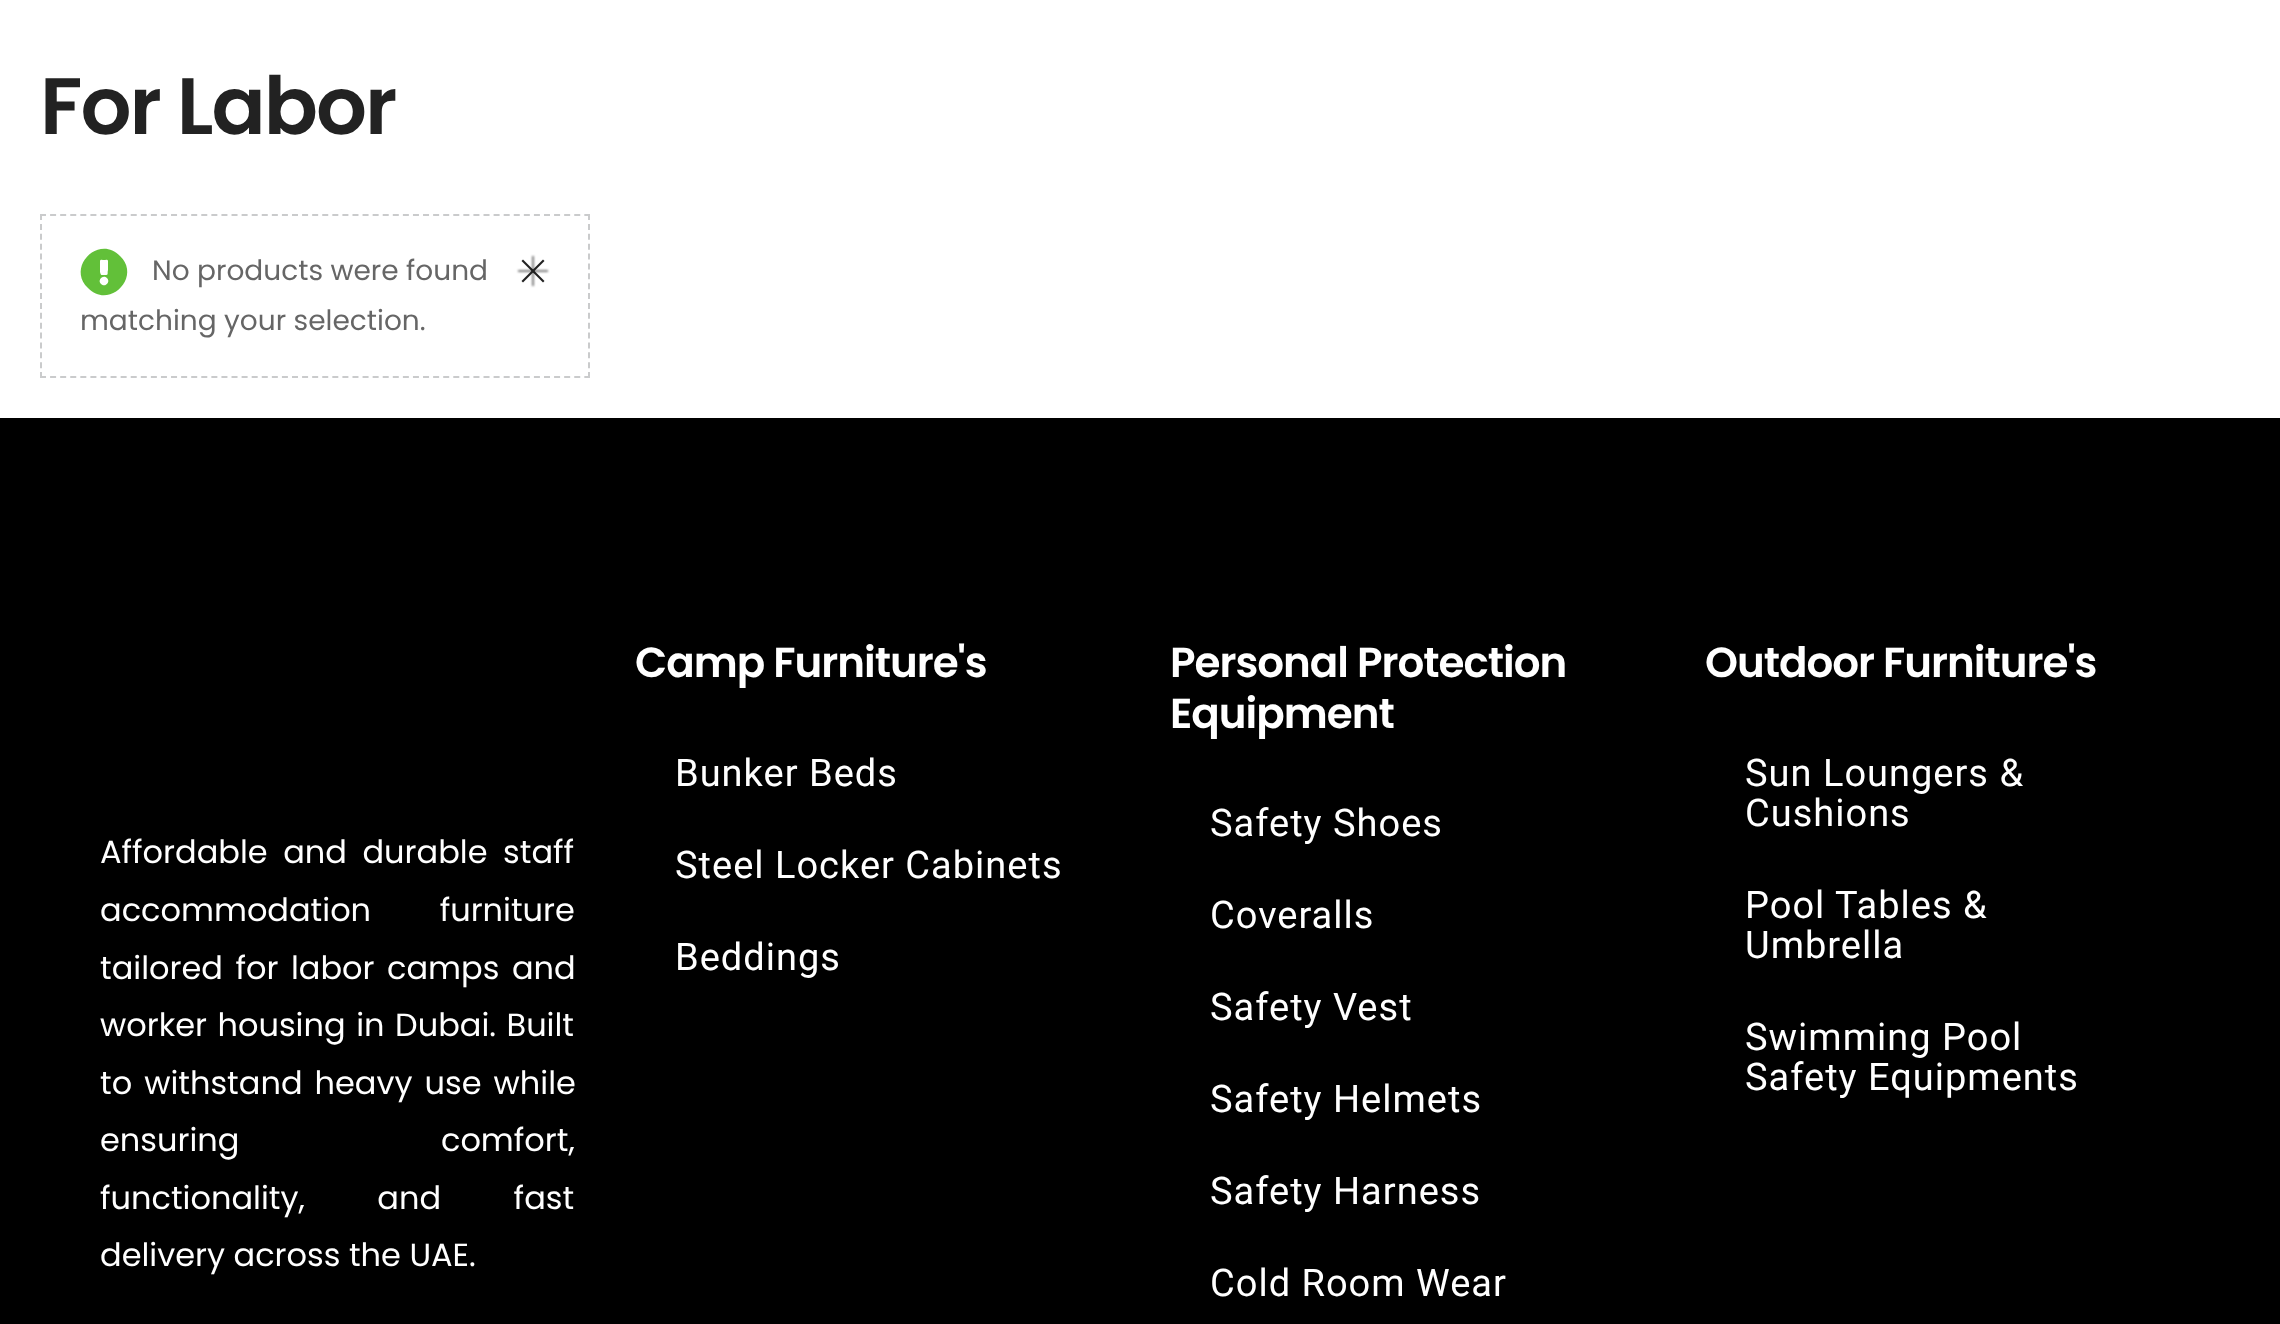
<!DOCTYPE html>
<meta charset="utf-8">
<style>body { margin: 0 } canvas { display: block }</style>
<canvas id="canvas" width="2280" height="1324"></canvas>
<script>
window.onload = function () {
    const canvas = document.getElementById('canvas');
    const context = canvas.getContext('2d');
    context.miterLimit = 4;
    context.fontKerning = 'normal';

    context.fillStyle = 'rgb(255, 255, 255)';
    context.fillRect(0, 0, 2280, 1324);
    context.beginPath();
    context.moveTo(40, 215);
    context.lineTo(590, 215);
    context.strokeStyle = 'rgb(202, 203, 204)';
    context.lineWidth = 2;
    context.setLineDash([6, 4.08]);
    context.stroke();
    context.beginPath();
    context.moveTo(589, 214);
    context.lineTo(589, 378);
    context.setLineDash([6, 3.88]);
    context.stroke();
    context.beginPath();
    context.moveTo(40, 377);
    context.lineTo(590, 377);
    context.setLineDash([6, 4.08]);
    context.stroke();
    context.beginPath();
    context.moveTo(41, 214);
    context.lineTo(41, 378);
    context.setLineDash([6, 3.88]);
    context.stroke();
    context.fillStyle = 'rgb(98, 192, 57)';
    context.beginPath();
    context.moveTo(120, 256);
    context.bezierCurveTo(142, 277, 109, 310, 88, 288);
    context.bezierCurveTo(66, 267, 99, 234, 120, 256);
    context.closePath();
    context.moveTo(107, 278);
    context.bezierCurveTo(103, 274, 97, 280, 101, 284);
    context.bezierCurveTo(105, 288, 111, 282, 107, 278);
    context.closePath();
    context.moveTo(100, 261);
    context.lineTo(100, 272);
    context.bezierCurveTo(101, 276, 101, 275, 105, 275);
    context.bezierCurveTo(109, 275, 107, 274, 108, 270);
    context.lineTo(108, 261);
    context.bezierCurveTo(108, 259, 105, 260, 104, 260);
    context.bezierCurveTo(103, 260, 100, 259, 100, 261);
    context.closePath();
    context.fill();
    context.fillStyle = 'rgba(0, 0, 0, 0.5)';
    context.filter = 'blur(1px)';
    context.beginPath();
    context.rect(518, 270, 30, 2);
    context.fill();
    context.filter = 'none';
    context.fillStyle = 'rgb(34, 34, 34)';
    context.beginPath();
    context.moveTo(523, 259.5);
    context.lineTo(544.5, 281);
    context.lineTo(543, 282.5);
    context.lineTo(521.5, 261);
    context.closePath();
    context.fill();
    context.fillStyle = 'rgba(0, 0, 0, 0.5)';
    context.filter = 'blur(1px)';
    context.beginPath();
    context.rect(532, 256, 2, 30);
    context.fill();
    context.filter = 'none';
    context.fillStyle = 'rgb(34, 34, 34)';
    context.beginPath();
    context.moveTo(543, 259.5);
    context.lineTo(544.5, 261);
    context.lineTo(523, 282.5);
    context.lineTo(521.5, 281);
    context.closePath();
    context.fill();
    context.fillStyle = 'rgb(0, 0, 0)';
    context.fillRect(0, 418, 2280, 906);
    context.letterSpacing = '-2px';
    context.font = '600 80px Poppins';
    context.fillStyle = 'rgb(34, 34, 34)';
    context.fillText('For Labor', 40, 134);
    context.letterSpacing = '0px';
    context.font = '28px Poppins';
    context.fillStyle = 'rgb(102, 102, 102)';
    context.fillText('No products were found', 152, 280);
    context.fillText('matching your selection.', 80, 330);
    context.wordSpacing = '7px';
    context.font = '32px Poppins';
    context.fillStyle = 'rgb(255, 255, 255)';
    context.fillText('Affordable and durable staff', 100, 863);
    context.wordSpacing = '60px';
    context.fillText('accommodation furniture', 100, 921);
    context.wordSpacing = '4px';
    context.fillText('tailored for labor camps and', 100, 979);
    context.wordSpacing = '2px';
    context.fillText('worker housing in Dubai. Built', 100, 1036);
    context.wordSpacing = '3.5px';
    context.fillText('to withstand heavy use while', 100, 1094);
    context.wordSpacing = '193px';
    context.fillText('ensuring comfort,', 100, 1151);
    context.wordSpacing = '64px';
    context.fillText('functionality, and fast', 100, 1209);
    context.wordSpacing = '0px';
    context.fillText('delivery across the UAE.', 100, 1266);
    context.letterSpacing = '-1px';
    context.font = '600 42px Poppins';
    context.fillText('Camp Furniture\'s', 635, 677);
    context.letterSpacing = '1px';
    context.font = '38px Roboto';
    context.fillText('Bunker Beds', 675, 786);
    context.fillText('Steel Locker Cabinets', 675, 878);
    context.fillText('Beddings', 675, 970);
    context.letterSpacing = '-1px';
    context.font = '600 42px Poppins';
    context.fillText('Personal Protection', 1170, 677);
    context.fillText('Equipment', 1170, 728);
    context.letterSpacing = '1px';
    context.font = '38px Roboto';
    context.fillText('Safety Shoes', 1210, 836);
    context.fillText('Coveralls', 1210, 928);
    context.fillText('Safety Vest', 1210, 1020);
    context.fillText('Safety Helmets', 1210, 1112);
    context.fillText('Safety Harness', 1210, 1204);
    context.fillText('Cold Room Wear', 1210, 1296);
    context.letterSpacing = '-1px';
    context.font = '600 42px Poppins';
    context.fillText('Outdoor Furniture\'s', 1705, 677);
    context.letterSpacing = '1px';
    context.font = '38px Roboto';
    context.fillText('Sun Loungers &', 1745, 786);
    context.fillText('Cushions', 1745, 826);
    context.fillText('Pool Tables &', 1745, 918);
    context.fillText('Umbrella', 1745, 958);
    context.fillText('Swimming Pool', 1745, 1050);
    context.fillText('Safety Equipments', 1745, 1090);
};
</script>
